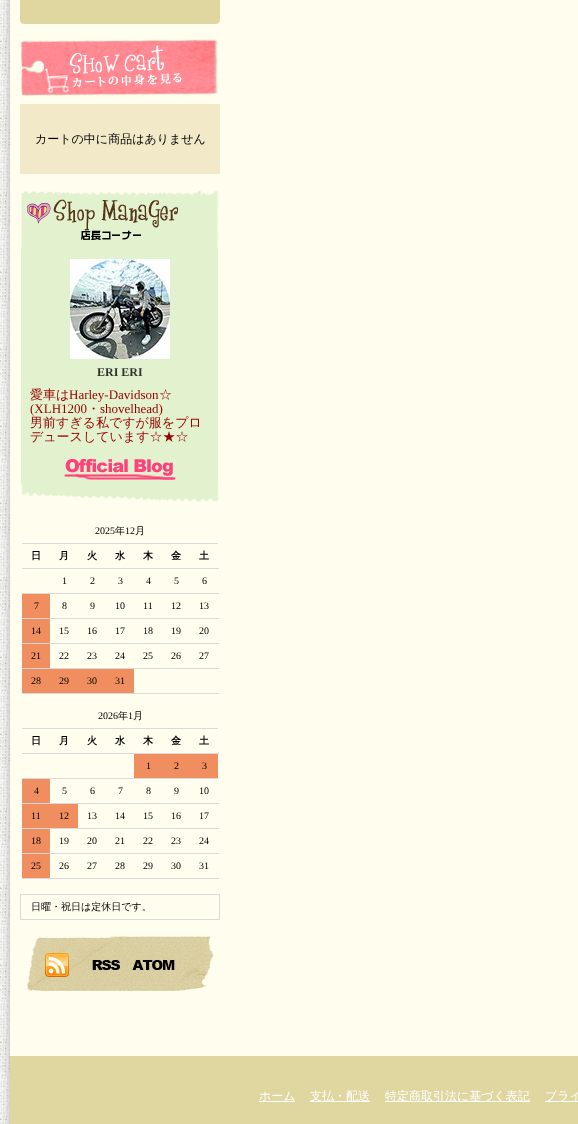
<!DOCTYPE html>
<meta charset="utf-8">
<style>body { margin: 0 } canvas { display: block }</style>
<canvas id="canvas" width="578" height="1124"></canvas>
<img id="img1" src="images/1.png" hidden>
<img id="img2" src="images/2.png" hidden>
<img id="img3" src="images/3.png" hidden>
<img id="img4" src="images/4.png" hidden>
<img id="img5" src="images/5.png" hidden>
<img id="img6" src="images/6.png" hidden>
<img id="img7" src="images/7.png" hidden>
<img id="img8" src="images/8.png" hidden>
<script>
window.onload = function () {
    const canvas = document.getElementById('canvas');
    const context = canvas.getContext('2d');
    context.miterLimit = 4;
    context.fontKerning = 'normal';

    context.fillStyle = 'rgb(255, 255, 255)';
    context.fillRect(0, 0, 578, 1124);
    context.drawImage(document.getElementById('img1'), 0, 0, 578, 1124);
    context.fillStyle = 'rgb(224, 214, 159)';
    context.fillRect(20, 0, 200, 17);
    context.drawImage(document.getElementById('img2'), 20, 17, 200, 7);
    context.drawImage(document.getElementById('img3'), 21, 39, 197, 57);
    context.fillStyle = 'rgb(242, 233, 200)';
    context.fillRect(20, 104, 200, 70);
    context.fillStyle = 'rgb(226, 242, 207)';
    context.fillRect(21, 249, 197, 235);
    context.drawImage(document.getElementById('img4'), 21, 189, 198, 60);
    context.drawImage(document.getElementById('img5'), 21, 484, 198, 20);
    context.drawImage(document.getElementById('img6'), 70, 259, 100, 100);
    context.drawImage(document.getElementById('img7'), 64, 459, 112, 21);
    context.fillStyle = 'rgb(218, 218, 218)';
    context.fillRect(22, 543, 196, 1);
    context.fillRect(22, 568, 197, 1);
    context.fillRect(22, 593, 197, 1);
    context.fillStyle = 'rgb(240, 142, 96)';
    context.fillRect(22, 594, 28, 24);
    context.fillStyle = 'rgb(218, 218, 218)';
    context.fillRect(22, 618, 197, 1);
    context.fillStyle = 'rgb(240, 142, 96)';
    context.fillRect(22, 619, 28, 24);
    context.fillStyle = 'rgb(218, 218, 218)';
    context.fillRect(22, 643, 197, 1);
    context.fillStyle = 'rgb(240, 142, 96)';
    context.fillRect(22, 644, 28, 24);
    context.fillStyle = 'rgb(218, 218, 218)';
    context.fillRect(22, 668, 197, 1);
    context.fillStyle = 'rgb(240, 142, 96)';
    context.fillRect(22, 669, 112, 24);
    context.fillStyle = 'rgb(218, 218, 218)';
    context.fillRect(22, 693, 197, 1);
    context.fillRect(22, 728, 196, 1);
    context.fillRect(22, 753, 197, 1);
    context.fillStyle = 'rgb(240, 142, 96)';
    context.fillRect(134, 754, 84, 24);
    context.fillStyle = 'rgb(218, 218, 218)';
    context.fillRect(22, 778, 197, 1);
    context.fillStyle = 'rgb(240, 142, 96)';
    context.fillRect(22, 779, 28, 24);
    context.fillStyle = 'rgb(218, 218, 218)';
    context.fillRect(22, 803, 197, 1);
    context.fillStyle = 'rgb(240, 142, 96)';
    context.fillRect(22, 804, 56, 24);
    context.fillStyle = 'rgb(218, 218, 218)';
    context.fillRect(22, 828, 197, 1);
    context.fillStyle = 'rgb(240, 142, 96)';
    context.fillRect(22, 829, 28, 24);
    context.fillStyle = 'rgb(218, 218, 218)';
    context.fillRect(22, 853, 197, 1);
    context.fillStyle = 'rgb(240, 142, 96)';
    context.fillRect(22, 854, 28, 24);
    context.fillStyle = 'rgb(218, 218, 218)';
    context.fillRect(22, 878, 197, 1);
    context.strokeStyle = 'rgb(218, 218, 218)';
    context.strokeRect(20.5, 894.5, 199, 25);
    context.drawImage(document.getElementById('img8'), 27, 936, 186, 55);
    context.fillStyle = 'rgb(224, 214, 159)';
    context.fillRect(10, 1056, 568, 68);
    context.fillStyle = 'rgb(255, 253, 238)';
    context.fillRect(10, 1026, 1, 30);
    context.fillStyle = 'rgb(255, 255, 255)';
    context.fillRect(259, 1101, 36, 1);
    context.fillRect(310, 1101, 60, 1);
    context.fillRect(385, 1101, 145, 1);
    context.fillRect(545, 1101, 33, 1);
    context.font = '500 12px WenQuanYi Zen Hei';
    context.fillStyle = 'rgb(0, 0, 0)';
    context.fillText('カートの中に商品はありません', 35, 143);
    context.font = 'bold 12px Liberation Serif';
    context.fillStyle = 'rgb(51, 51, 51)';
    context.fillText('ERI ERI', 97, 376);
    context.font = '500 13px WenQuanYi Zen Hei';
    context.fillStyle = 'rgb(153, 0, 0)';
    context.fillText('愛車は', 30, 399);
    context.font = '13px Liberation Serif';
    context.fillText('Harley-Davidson', 69, 399);
    context.font = '500 13px WenQuanYi Zen Hei';
    context.fillText('☆', 159, 399);
    context.font = '13px Liberation Serif';
    context.fillText('(XLH1200', 30, 413);
    context.font = '500 13px WenQuanYi Zen Hei';
    context.fillText('・', 87, 413);
    context.font = '13px Liberation Serif';
    context.fillText('shovelhead)', 100, 413);
    context.font = '500 13px WenQuanYi Zen Hei';
    context.fillText('男前すぎる私ですが服をプロ', 30, 427);
    context.fillText('デュースしています☆★☆', 30, 441);
    context.font = '10px Liberation Serif';
    context.fillStyle = 'rgb(0, 0, 0)';
    context.fillText('2025', 95, 534);
    context.font = '500 10px WenQuanYi Zen Hei';
    context.fillText('年', 115, 534);
    context.font = '10px Liberation Serif';
    context.fillText('12', 125, 534);
    context.font = '500 10px WenQuanYi Zen Hei';
    context.fillText('月', 135, 534);
    context.font = 'bold 10px WenQuanYi Zen Hei';
    context.fillText('日', 31, 559);
    context.fillText('月', 59, 559);
    context.fillText('火', 87, 559);
    context.fillText('水', 115, 559);
    context.fillText('木', 143, 559);
    context.fillText('金', 171, 559);
    context.fillText('土', 199, 559);
    context.font = '10px Liberation Serif';
    context.fillText('1', 62, 584);
    context.fillText('2', 90, 584);
    context.fillText('3', 118, 584);
    context.fillText('4', 146, 584);
    context.fillText('5', 174, 584);
    context.fillText('6', 202, 584);
    context.fillText('7', 34, 609);
    context.fillText('8', 62, 609);
    context.fillText('9', 90, 609);
    context.fillText('10', 115, 609);
    context.fillText('11', 143, 609);
    context.fillText('12', 171, 609);
    context.fillText('13', 199, 609);
    context.fillText('14', 31, 634);
    context.fillText('15', 59, 634);
    context.fillText('16', 87, 634);
    context.fillText('17', 115, 634);
    context.fillText('18', 143, 634);
    context.fillText('19', 171, 634);
    context.fillText('20', 199, 634);
    context.fillText('21', 31, 659);
    context.fillText('22', 59, 659);
    context.fillText('23', 87, 659);
    context.fillText('24', 115, 659);
    context.fillText('25', 143, 659);
    context.fillText('26', 171, 659);
    context.fillText('27', 199, 659);
    context.fillText('28', 31, 684);
    context.fillText('29', 59, 684);
    context.fillText('30', 87, 684);
    context.fillText('31', 115, 684);
    context.fillText('2026', 98, 719);
    context.font = '500 10px WenQuanYi Zen Hei';
    context.fillText('年', 118, 719);
    context.font = '10px Liberation Serif';
    context.fillText('1', 128, 719);
    context.font = '500 10px WenQuanYi Zen Hei';
    context.fillText('月', 133, 719);
    context.font = 'bold 10px WenQuanYi Zen Hei';
    context.fillText('日', 31, 744);
    context.fillText('月', 59, 744);
    context.fillText('火', 87, 744);
    context.fillText('水', 115, 744);
    context.fillText('木', 143, 744);
    context.fillText('金', 171, 744);
    context.fillText('土', 199, 744);
    context.font = '10px Liberation Serif';
    context.fillText('1', 146, 769);
    context.fillText('2', 174, 769);
    context.fillText('3', 202, 769);
    context.fillText('4', 34, 794);
    context.fillText('5', 62, 794);
    context.fillText('6', 90, 794);
    context.fillText('7', 118, 794);
    context.fillText('8', 146, 794);
    context.fillText('9', 174, 794);
    context.fillText('10', 199, 794);
    context.fillText('11', 31, 819);
    context.fillText('12', 59, 819);
    context.fillText('13', 87, 819);
    context.fillText('14', 115, 819);
    context.fillText('15', 143, 819);
    context.fillText('16', 171, 819);
    context.fillText('17', 199, 819);
    context.fillText('18', 31, 844);
    context.fillText('19', 59, 844);
    context.fillText('20', 87, 844);
    context.fillText('21', 115, 844);
    context.fillText('22', 143, 844);
    context.fillText('23', 171, 844);
    context.fillText('24', 199, 844);
    context.fillText('25', 31, 869);
    context.fillText('26', 59, 869);
    context.fillText('27', 87, 869);
    context.fillText('28', 115, 869);
    context.fillText('29', 143, 869);
    context.fillText('30', 171, 869);
    context.fillText('31', 199, 869);
    context.font = '500 10px WenQuanYi Zen Hei';
    context.fillText('日曜・祝日は定休日です。', 31, 910);
    context.font = '500 12px WenQuanYi Zen Hei';
    context.fillStyle = 'rgb(255, 255, 255)';
    context.fillText('ホーム', 259, 1100);
    context.fillText('支払・配送', 310, 1100);
    context.fillText('特定商取引法に基づく表記', 385, 1100);
    context.fillText('プライ', 545, 1100);
};
</script>
